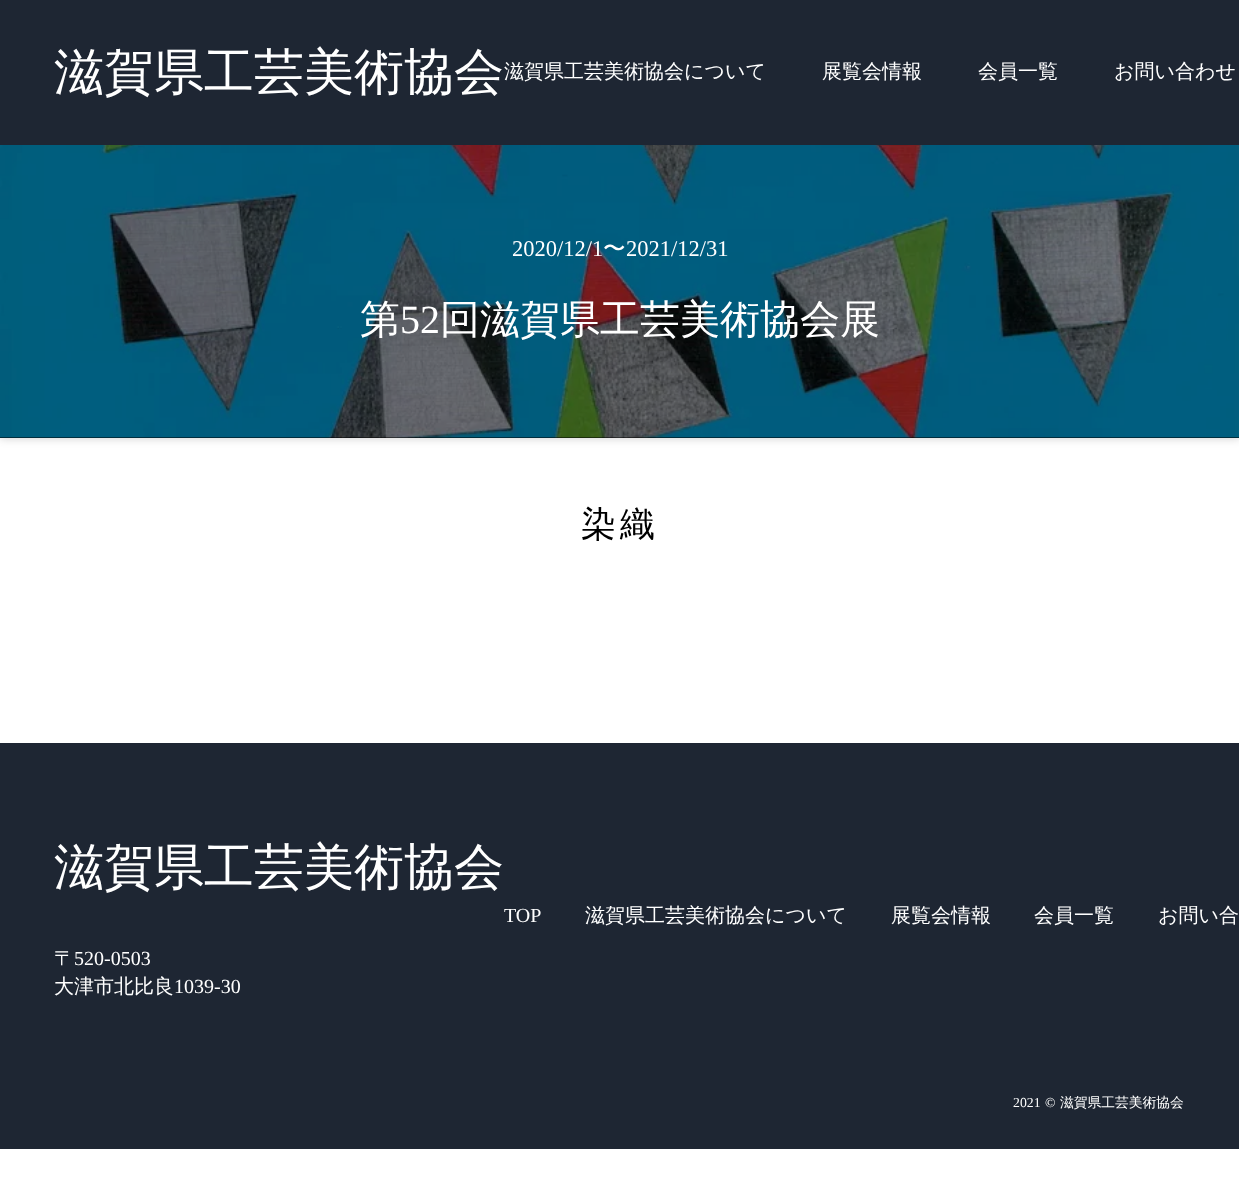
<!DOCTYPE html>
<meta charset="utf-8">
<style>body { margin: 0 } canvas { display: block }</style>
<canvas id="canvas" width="1239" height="1203"></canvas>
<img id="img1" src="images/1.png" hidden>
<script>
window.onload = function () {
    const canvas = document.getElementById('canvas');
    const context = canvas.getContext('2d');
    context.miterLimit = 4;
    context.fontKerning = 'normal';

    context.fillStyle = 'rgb(255, 255, 255)';
    context.fillRect(0, 0, 1239, 1203);
    context.fillStyle = 'rgba(0, 0, 0, 0.2)';
    context.filter = 'blur(5px)';
    context.beginPath();
    context.rect(0, 145, 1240, 293);
    context.fill();
    context.filter = 'none';
    context.fillStyle = 'rgb(30, 38, 51)';
    context.fillRect(0, 0, 1239, 145);
    context.fillStyle = 'rgb(0, 0, 0)';
    context.fillRect(0, 437, 1239, 1);
    context.drawImage(document.getElementById('img1'), 0, 145, 1239, 293);
    context.fillStyle = 'rgb(30, 38, 51)';
    context.fillRect(0, 743, 1239, 406);
    context.font = '500 50px WenQuanYi Zen Hei';
    context.fillStyle = 'rgb(255, 255, 255)';
    context.fillText('滋賀県工芸美術協会', 54, 89);
    context.font = '500 20px WenQuanYi Zen Hei';
    context.fillText('滋賀県工芸美術協会について', 504, 78);
    context.fillText('展覧会情報', 822, 78);
    context.fillText('会員一覧', 978, 78);
    context.fillText('お問い合わせ', 1114, 78);
    context.font = '22.5px Liberation Serif';
    context.fillText('2020/12/1', 512, 256);
    context.font = '500 22.5px WenQuanYi Zen Hei';
    context.fillText('〜', 603, 256);
    context.font = '22.5px Liberation Serif';
    context.fillText('2021/12/31', 626, 256);
    context.font = '500 40px WenQuanYi Zen Hei';
    context.fillText('第', 360, 333);
    context.font = '40px Liberation Serif';
    context.fillText('52', 400, 333);
    context.font = '500 40px WenQuanYi Zen Hei';
    context.fillText('回滋賀県工芸美術協会展', 440, 333);
    context.letterSpacing = '4px';
    context.font = '500 35px WenQuanYi Zen Hei';
    context.fillStyle = 'rgb(0, 0, 0)';
    context.fillText('染織', 581, 536);
    context.letterSpacing = '0px';
    context.font = '500 50px WenQuanYi Zen Hei';
    context.fillStyle = 'rgb(255, 255, 255)';
    context.fillText('滋賀県工芸美術協会', 54, 884);
    context.font = '500 20px WenQuanYi Zen Hei';
    context.fillText('〒', 54, 965);
    context.font = '20px Liberation Serif';
    context.fillText('520-0503', 74, 965);
    context.font = '500 20px WenQuanYi Zen Hei';
    context.fillText('大津市北比良', 54, 993);
    context.font = '20px Liberation Serif';
    context.fillText('1039-30', 174, 993);
    context.fillText('TOP', 504, 922);
    context.font = '500 20px WenQuanYi Zen Hei';
    context.fillText('滋賀県工芸美術協会について', 585, 922);
    context.fillText('展覧会情報', 891, 922);
    context.fillText('会員一覧', 1034, 922);
    context.fillText('お問い合', 1158, 922);
    context.wordSpacing = '1px';
    context.font = '13.75px Liberation Serif';
    context.fillText('2021 ©', 1013, 1107);
    context.wordSpacing = '0px';
    context.font = '500 13.75px WenQuanYi Zen Hei';
    context.fillText('滋賀県工芸美術協会', 1060, 1107);
};
</script>
